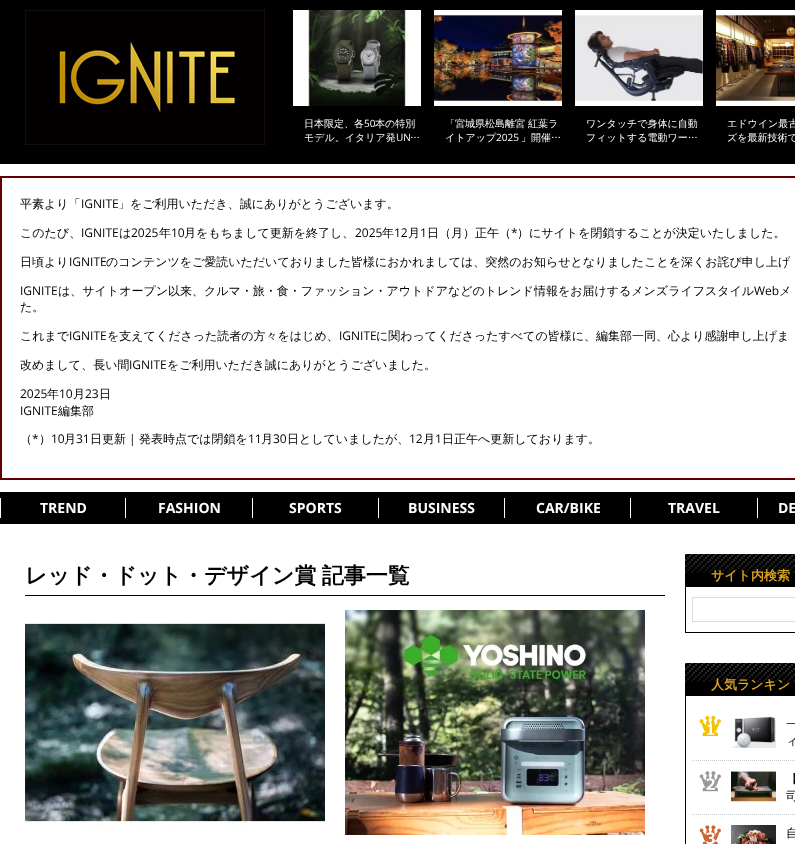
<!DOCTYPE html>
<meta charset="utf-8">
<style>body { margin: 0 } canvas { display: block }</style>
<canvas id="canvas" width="795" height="844"></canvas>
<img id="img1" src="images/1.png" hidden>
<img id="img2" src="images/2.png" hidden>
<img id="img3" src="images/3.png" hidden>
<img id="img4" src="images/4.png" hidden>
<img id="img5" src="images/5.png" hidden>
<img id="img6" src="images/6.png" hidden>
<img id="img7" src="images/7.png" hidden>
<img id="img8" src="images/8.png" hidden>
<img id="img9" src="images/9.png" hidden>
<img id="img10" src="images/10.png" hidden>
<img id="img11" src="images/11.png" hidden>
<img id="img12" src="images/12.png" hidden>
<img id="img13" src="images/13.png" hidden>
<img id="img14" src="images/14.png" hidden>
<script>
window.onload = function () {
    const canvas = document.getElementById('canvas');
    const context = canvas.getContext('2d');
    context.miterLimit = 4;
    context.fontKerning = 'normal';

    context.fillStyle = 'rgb(255, 255, 255)';
    context.fillRect(0, 0, 795, 844);
    context.fillStyle = 'rgb(0, 0, 0)';
    context.fillRect(0, 0, 795, 164);
    context.drawImage(document.getElementById('img1'), 25, 10, 240, 135);
    context.drawImage(document.getElementById('img2'), 293, 10, 128, 96);
    context.drawImage(document.getElementById('img3'), 434, 10, 128, 96);
    context.drawImage(document.getElementById('img4'), 575, 10, 128, 96);
    context.drawImage(document.getElementById('img5'), 716, 10, 79, 96);
    context.strokeStyle = 'rgb(102, 0, 0)';
    context.lineWidth = 2;
    context.strokeRect(1, 177, 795, 302);
    context.fillRect(0, 492, 795, 32);
    context.fillStyle = 'rgb(255, 255, 255)';
    context.fillRect(0, 498, 1, 20);
    context.fillRect(125, 498, 1, 20);
    context.fillRect(252, 498, 1, 20);
    context.fillRect(378, 498, 1, 20);
    context.fillRect(504, 498, 1, 20);
    context.fillRect(630, 498, 1, 20);
    context.fillRect(757, 498, 1, 20);
    context.fillStyle = 'rgb(0, 0, 0)';
    context.fillRect(25, 595, 640, 1);
    context.drawImage(document.getElementById('img6'), 25, 622, 300, 204);
    context.drawImage(document.getElementById('img7'), 345, 610, 300, 225);
    context.fillRect(685, 573, 110, 14);
    context.drawImage(document.getElementById('img8'), 685, 554, 110, 19);
    context.fillRect(685, 632, 110, 1);
    context.fillRect(685, 587, 1, 46);
    context.fillStyle = 'rgb(218, 218, 218)';
    context.fillRect(692, 597, 103, 1);
    context.fillRect(692, 621, 103, 1);
    context.fillRect(692, 597, 1, 25);
    context.fillStyle = 'rgb(0, 0, 0)';
    context.fillRect(685, 682, 110, 14);
    context.drawImage(document.getElementById('img8'), 685, 663, 110, 19);
    context.fillRect(685, 696, 1, 148);
    context.drawImage(document.getElementById('img9'), 699, 716, 22, 20);
    context.drawImage(document.getElementById('img10'), 732, 716, 44, 32);
    context.drawImage(document.getElementById('img11'), 699, 771, 22, 21);
    context.beginPath();
    context.moveTo(692, 760.5);
    context.lineTo(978, 760.5);
    context.strokeStyle = 'rgb(204, 204, 204)';
    context.lineWidth = 1;
    context.setLineDash([1, 1]);
    context.stroke();
    context.drawImage(document.getElementById('img12'), 731, 771, 45, 31);
    context.drawImage(document.getElementById('img13'), 699, 825, 22, 19);
    context.beginPath();
    context.moveTo(692, 814.5);
    context.lineTo(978, 814.5);
    context.stroke();
    context.drawImage(document.getElementById('img14'), 731, 825, 45, 19);
    context.font = '500 10px WenQuanYi Zen Hei';
    context.fillStyle = 'rgb(255, 254, 254)';
    context.fillText('日本限定、各', 304, 127);
    context.font = '10px Open Sans';
    context.fillText('50', 364, 127);
    context.font = '500 10px WenQuanYi Zen Hei';
    context.fillText('本の特別', 375, 127);
    context.fillText('モデル。イタリア発', 304, 141);
    context.font = '10px Open Sans';
    context.fillText('UN', 396, 141);
    context.font = '500 10px WenQuanYi Zen Hei';
    context.fillText('…', 410, 141);
    context.fillText('「宮城県松島離宮 紅葉ラ', 445, 127);
    context.fillText('イトアップ', 445, 141);
    context.font = '10px Open Sans';
    context.fillText('2025', 496, 141);
    context.font = '500 10px WenQuanYi Zen Hei';
    context.fillText('」開催…', 521, 141);
    context.fillText('ワンタッチで身体に自動', 586, 127);
    context.fillText('フィットする電動ワー…', 586, 141);
    context.fillText('エドウイン最古', 727, 127);
    context.fillText('ズを最新技術で', 727, 141);
    context.font = '500 12px WenQuanYi Zen Hei';
    context.fillStyle = 'rgb(0, 0, 0)';
    context.fillText('平素より「', 20, 208);
    context.font = '12px Open Sans';
    context.fillText('IGNITE', 81, 208);
    context.font = '500 12px WenQuanYi Zen Hei';
    context.fillText('」をご利用いただき、誠にありがとうございます。', 118, 208);
    context.fillText('このたび、', 20, 237);
    context.font = '12px Open Sans';
    context.fillText('IGNITE', 81, 237);
    context.font = '500 12px WenQuanYi Zen Hei';
    context.fillText('は', 119, 237);
    context.font = '12px Open Sans';
    context.fillText('2025', 131, 237);
    context.font = '500 12px WenQuanYi Zen Hei';
    context.fillText('年', 159, 237);
    context.font = '12px Open Sans';
    context.fillText('10', 171, 237);
    context.font = '500 12px WenQuanYi Zen Hei';
    context.fillText('月をもちまして更新を終了し、', 184, 237);
    context.font = '12px Open Sans';
    context.fillText('2025', 355, 237);
    context.font = '500 12px WenQuanYi Zen Hei';
    context.fillText('年', 382, 237);
    context.font = '12px Open Sans';
    context.fillText('12', 394, 237);
    context.font = '500 12px WenQuanYi Zen Hei';
    context.fillText('月', 408, 237);
    context.font = '12px Open Sans';
    context.fillText('1', 420, 237);
    context.font = '500 12px WenQuanYi Zen Hei';
    context.fillText('日（月）正午（', 427, 237);
    context.font = '12px Open Sans';
    context.fillText('*', 511, 237);
    context.font = '500 12px WenQuanYi Zen Hei';
    context.fillText('）にサイトを閉鎖することが決定いたしました。', 517, 237);
    context.fillText('日頃より', 20, 266);
    context.font = '12px Open Sans';
    context.fillText('IGNITE', 69, 266);
    context.font = '500 12px WenQuanYi Zen Hei';
    context.fillText('のコンテンツをご愛読いただいておりました皆様におかれましては、突然のお知らせとなりましたことを深くお詫び申し上げ', 106, 266);
    context.font = '12px Open Sans';
    context.fillText('IGNITE', 20, 295);
    context.font = '500 12px WenQuanYi Zen Hei';
    context.fillText('は、サイトオープン以来、クルマ・旅・食・ファッション・アウトドアなどのトレンド情報をお届けするメンズライフスタイル', 58, 295);
    context.font = '12px Open Sans';
    context.fillText('Web', 754, 295);
    context.font = '500 12px WenQuanYi Zen Hei';
    context.fillText('メ', 779, 295);
    context.fillText('た。', 20, 311);
    context.fillText('これまで', 20, 340);
    context.font = '12px Open Sans';
    context.fillText('IGNITE', 69, 340);
    context.font = '500 12px WenQuanYi Zen Hei';
    context.fillText('を支えてくださった読者の方々をはじめ、', 107, 340);
    context.font = '12px Open Sans';
    context.fillText('IGNITE', 339, 340);
    context.font = '500 12px WenQuanYi Zen Hei';
    context.fillText('に関わってくださったすべての皆様に、編集部一同、心より感謝申し上げま', 376, 340);
    context.fillText('改めまして、長い間', 20, 369);
    context.font = '12px Open Sans';
    context.fillText('IGNITE', 129, 369);
    context.font = '500 12px WenQuanYi Zen Hei';
    context.fillText('をご利用いただき誠にありがとうございました。', 167, 369);
    context.font = '12px Open Sans';
    context.fillText('2025', 20, 398);
    context.font = '500 12px WenQuanYi Zen Hei';
    context.fillText('年', 47, 398);
    context.font = '12px Open Sans';
    context.fillText('10', 59, 398);
    context.font = '500 12px WenQuanYi Zen Hei';
    context.fillText('月', 73, 398);
    context.font = '12px Open Sans';
    context.fillText('23', 85, 398);
    context.font = '500 12px WenQuanYi Zen Hei';
    context.fillText('日', 99, 398);
    context.font = '12px Open Sans';
    context.fillText('IGNITE', 20, 415);
    context.font = '500 12px WenQuanYi Zen Hei';
    context.fillText('編集部', 58, 415);
    context.fillText('（', 20, 443);
    context.font = '12px Open Sans';
    context.fillText('*', 32, 443);
    context.font = '500 12px WenQuanYi Zen Hei';
    context.fillText('）', 39, 443);
    context.font = '12px Open Sans';
    context.fillText('10', 51, 443);
    context.font = '500 12px WenQuanYi Zen Hei';
    context.fillText('月', 64, 443);
    context.font = '12px Open Sans';
    context.fillText('31', 76, 443);
    context.font = '500 12px WenQuanYi Zen Hei';
    context.fillText('日更新', 90, 443);
    context.font = '12px Open Sans';
    context.fillText('|', 129, 443);
    context.font = '500 12px WenQuanYi Zen Hei';
    context.fillText('発表時点では閉鎖を', 139, 443);
    context.font = '12px Open Sans';
    context.fillText('11', 248, 443);
    context.font = '500 12px WenQuanYi Zen Hei';
    context.fillText('月', 261, 443);
    context.font = '12px Open Sans';
    context.fillText('30', 273, 443);
    context.font = '500 12px WenQuanYi Zen Hei';
    context.fillText('日としていましたが、', 287, 443);
    context.font = '12px Open Sans';
    context.fillText('12', 409, 443);
    context.font = '500 12px WenQuanYi Zen Hei';
    context.fillText('月', 423, 443);
    context.font = '12px Open Sans';
    context.fillText('1', 435, 443);
    context.font = '500 12px WenQuanYi Zen Hei';
    context.fillText('日正午へ更新しております。', 442, 443);
    context.font = 'bold 14px Open Sans';
    context.fillStyle = 'rgb(255, 254, 254)';
    context.fillText('TREND', 40, 513);
    context.fillText('FASHION', 158, 513);
    context.fillText('SPORTS', 289, 513);
    context.fillText('BUSINESS', 408, 513);
    context.fillText('CAR/BIKE', 536, 513);
    context.fillText('TRAVEL', 668, 513);
    context.fillText('DE', 778, 513);
    context.wordSpacing = '-1px';
    context.font = 'bold 22px WenQuanYi Zen Hei';
    context.fillStyle = 'rgb(0, 0, 0)';
    context.fillText('レッド・ドット・デザイン賞 記事一覧', 25, 583);
    context.wordSpacing = '0px';
    context.font = 'bold 13px WenQuanYi Zen Hei';
    context.fillStyle = 'rgb(218, 165, 32)';
    context.fillText('サイト内検索', 711, 580);
    context.fillText('人気ランキン', 711, 689);
    context.font = '500 12px WenQuanYi Zen Hei';
    context.fillStyle = 'rgb(0, 0, 0)';
    context.fillText('一', 786, 728);
    context.fillText('ィ', 786, 745);
    context.fillText('【', 786, 783);
    context.fillText('司', 786, 800);
    context.fillText('自', 786, 837);
};
</script>
